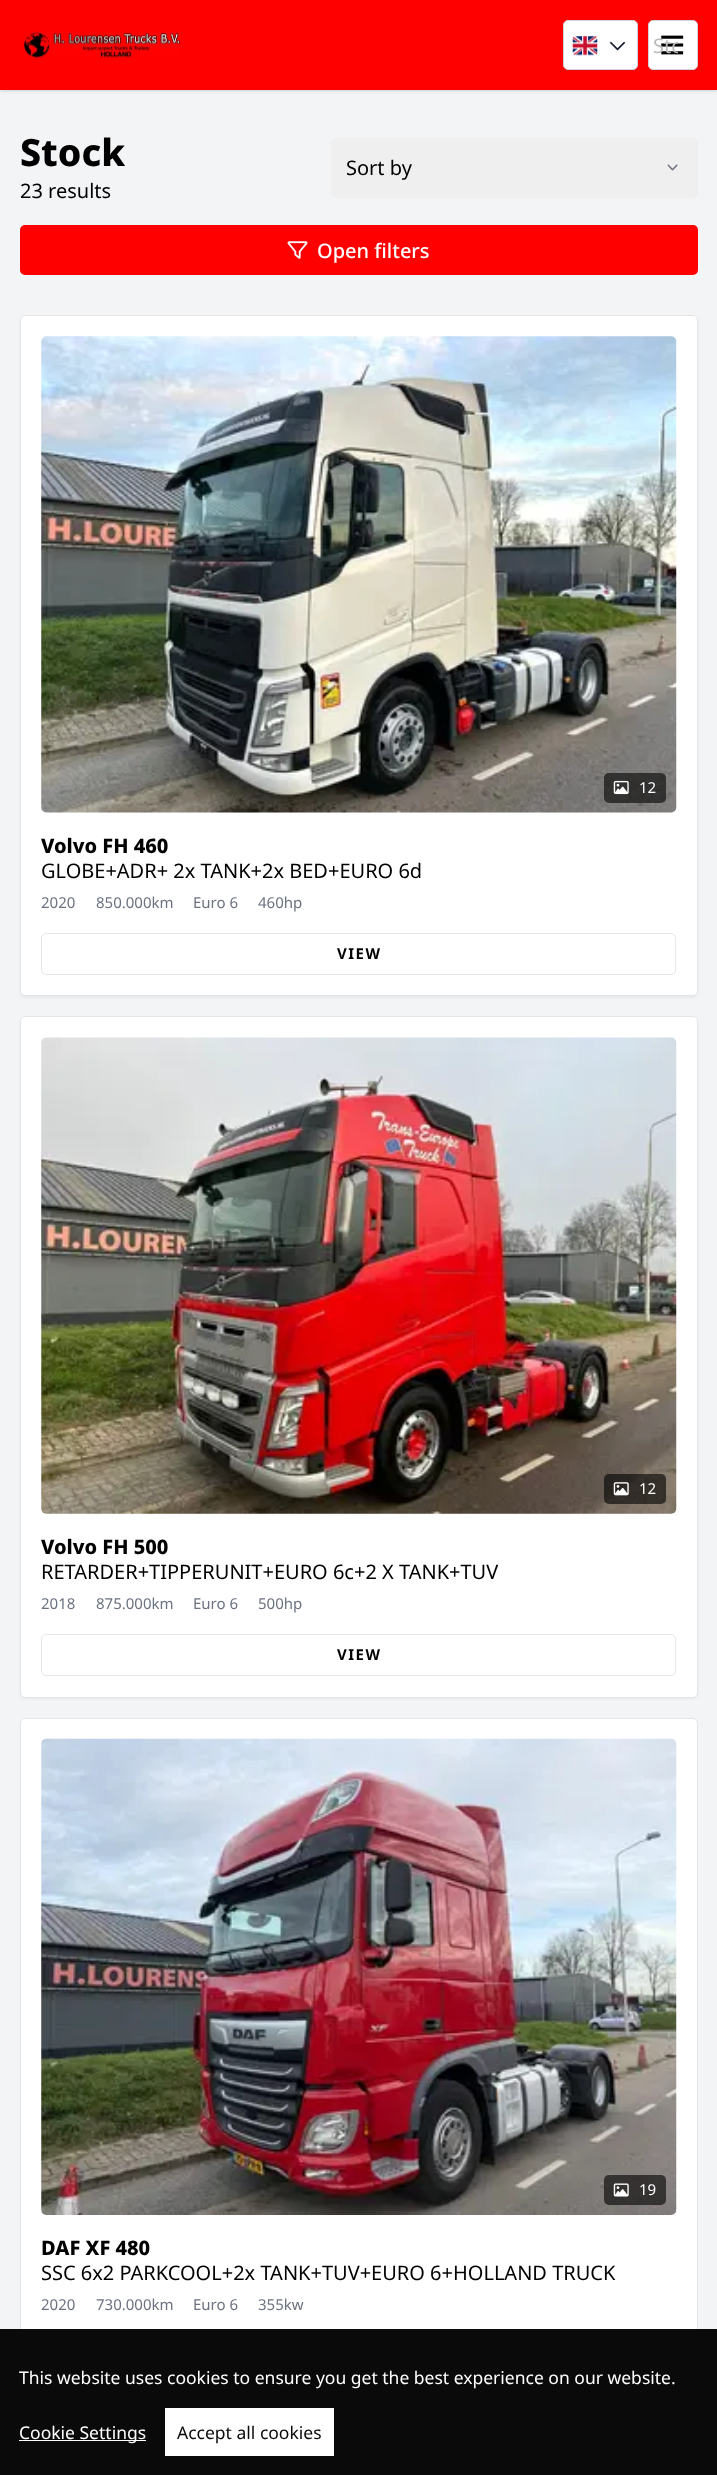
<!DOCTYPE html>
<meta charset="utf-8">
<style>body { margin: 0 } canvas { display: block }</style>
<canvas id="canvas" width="717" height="2475"></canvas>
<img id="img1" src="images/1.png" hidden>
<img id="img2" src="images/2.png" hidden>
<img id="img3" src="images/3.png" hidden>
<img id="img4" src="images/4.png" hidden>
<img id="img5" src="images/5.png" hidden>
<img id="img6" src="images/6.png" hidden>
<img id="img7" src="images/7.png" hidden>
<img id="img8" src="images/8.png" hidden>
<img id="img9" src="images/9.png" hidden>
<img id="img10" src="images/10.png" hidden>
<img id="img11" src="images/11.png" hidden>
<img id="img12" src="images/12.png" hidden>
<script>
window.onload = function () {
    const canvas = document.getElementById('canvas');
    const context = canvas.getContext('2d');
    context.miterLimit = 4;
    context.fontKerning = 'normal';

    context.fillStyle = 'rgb(243, 244, 246)';
    context.fillRect(0, 0, 717, 2475);
    context.fillStyle = 'rgba(0, 0, 0, 0.1)';
    context.filter = 'blur(1px)';
    context.beginPath();
    context.rect(1, 3, 715, 87);
    context.fill();
    context.filter = 'none';
    context.filter = 'blur(2px)';
    context.beginPath();
    context.rect(0, 1, 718, 90);
    context.fill();
    context.filter = 'none';
    context.fillStyle = 'rgb(254, 0, 0)';
    context.fillRect(0, 0, 717, 90);
    context.drawImage(document.getElementById('img1'), 24, 32, 156, 27);
    context.fillStyle = 'rgba(0, 0, 0, 0.05)';
    context.filter = 'blur(1px)';
    context.beginPath();
    context.roundRect(563, 21, 75, 50, 5);
    context.fill();
    context.filter = 'none';
    context.fillStyle = 'rgb(255, 255, 255)';
    context.beginPath();
    context.roundRect(563.5, 20.5, 74, 49, 4.5);
    context.fill();
    context.strokeStyle = 'rgb(209, 213, 219)';
    context.stroke();
    context.drawImage(document.getElementById('img2'), 572, 36, 26, 20);
    context.drawImage(document.getElementById('img3'), 609, 41, 17, 10);
    context.fillStyle = 'rgba(0, 0, 0, 0.05)';
    context.filter = 'blur(1px)';
    context.beginPath();
    context.roundRect(648, 21, 50, 50, 5);
    context.fill();
    context.filter = 'none';
    context.fillStyle = 'rgb(255, 255, 255)';
    context.beginPath();
    context.roundRect(648.5, 20.5, 49, 49, 4.5);
    context.fill();
    context.stroke();
    context.drawImage(document.getElementById('img4'), 661, 35, 23, 20);
    context.fillStyle = 'rgb(239, 239, 239)';
    context.beginPath();
    context.roundRect(331, 138, 367, 60, 5);
    context.fill();
    context.drawImage(document.getElementById('img5'), 667, 164, 11, 7);
    context.fillStyle = 'rgb(254, 0, 0)';
    context.beginPath();
    context.roundRect(20, 225, 678, 50, 5);
    context.fill();
    context.drawImage(document.getElementById('img6'), 287, 241, 21, 18);
    context.fillStyle = 'rgba(0, 0, 0, 0.05)';
    context.filter = 'blur(1px)';
    context.beginPath();
    context.roundRect(20, 316, 678, 682, 5);
    context.fill();
    context.filter = 'none';
    context.fillStyle = 'rgb(255, 255, 255)';
    context.beginPath();
    context.roundRect(20, 315, 678, 681, 5);
    context.fill();
    context.beginPath();
    context.roundRect(20.5, 315.5, 677, 680, 4.5);
    context.strokeStyle = 'rgba(0, 0, 0, 0.1)';
    context.stroke();
    context.drawImage(document.getElementById('img7'), 41, 336, 636, 477);
    context.fillStyle = 'rgba(0, 0, 0, 0.6)';
    context.beginPath();
    context.roundRect(604, 773, 62, 30, 5);
    context.fill();
    context.drawImage(document.getElementById('img8'), 613, 780, 16, 15);
    context.beginPath();
    context.roundRect(41.5, 933.5, 634, 41, 4.5);
    context.strokeStyle = 'rgb(229, 231, 235)';
    context.stroke();
    context.fillStyle = 'rgba(0, 0, 0, 0.05)';
    context.filter = 'blur(1px)';
    context.beginPath();
    context.roundRect(20, 1018, 678, 681, 5);
    context.fill();
    context.filter = 'none';
    context.fillStyle = 'rgb(255, 255, 255)';
    context.beginPath();
    context.roundRect(20, 1016, 678, 682, 5);
    context.fill();
    context.beginPath();
    context.roundRect(20.5, 1016.5, 677, 681, 4.5);
    context.strokeStyle = 'rgba(0, 0, 0, 0.1)';
    context.stroke();
    context.drawImage(document.getElementById('img9'), 41, 1037, 636, 477);
    context.fillStyle = 'rgba(0, 0, 0, 0.6)';
    context.beginPath();
    context.roundRect(604, 1474, 62, 30, 5);
    context.fill();
    context.drawImage(document.getElementById('img10'), 613, 1482, 16, 14);
    context.beginPath();
    context.roundRect(41.5, 1634.5, 634, 41, 4.5);
    context.strokeStyle = 'rgb(229, 231, 235)';
    context.stroke();
    context.fillStyle = 'rgb(255, 255, 255)';
    context.beginPath();
    context.roundRect(20, 1718, 678, 681, 5);
    context.fill();
    context.beginPath();
    context.roundRect(20.5, 1718.5, 677, 680, 4.5);
    context.strokeStyle = 'rgba(0, 0, 0, 0.1)';
    context.stroke();
    context.drawImage(document.getElementById('img11'), 41, 1738, 636, 477);
    context.fillStyle = 'rgba(0, 0, 0, 0.6)';
    context.beginPath();
    context.roundRect(604, 2175, 62, 30, 5);
    context.fill();
    context.drawImage(document.getElementById('img12'), 613, 2183, 16, 14);
    context.fillStyle = 'rgb(10, 10, 10)';
    context.fillRect(0, 2329, 717, 146);
    context.fillStyle = 'rgb(255, 255, 255)';
    context.fillRect(19, 2440, 127, 1);
    context.fillRect(165, 2408, 169, 48);
    context.save();
    context.beginPath();
    context.rect(653, 30, 25, 30);
    context.clip();
    context.font = '20px Noto Sans';
    context.fillStyle = 'rgb(187, 187, 187)';
    context.fillText('Sto', 653, 53);
    context.restore();
    context.font = '800 37.5px Noto Sans';
    context.fillStyle = 'rgb(0, 0, 0)';
    context.fillText('Stock', 20, 166);
    context.font = '20px Noto Sans';
    context.fillText('23 results', 20, 198);
    context.fillText('Sort by', 346, 175);
    context.font = '500 20px Noto Sans';
    context.fillStyle = 'rgb(255, 255, 255)';
    context.fillText('Open filters', 317, 258);
    context.font = '15px Noto Sans';
    context.fillText('12', 639, 793);
    context.font = '800 20px Noto Sans';
    context.fillStyle = 'rgb(0, 0, 0)';
    context.fillText('Volvo FH 460', 41, 853);
    context.font = '20px Noto Sans';
    context.fillText('GLOBE+ADR+ 2x TANK+2x BED+EURO 6d', 41, 878);
    context.font = '15px Noto Sans';
    context.fillStyle = 'rgb(107, 114, 128)';
    context.fillText('2020', 41, 908);
    context.fillText('850.000km', 96, 908);
    context.fillText('Euro 6', 193, 908);
    context.fillText('460hp', 258, 908);
    context.letterSpacing = '1.5px';
    context.font = 'bold 15px Noto Sans';
    context.fillStyle = 'rgb(0, 0, 0)';
    context.fillText('VIEW', 337, 959);
    context.letterSpacing = '0px';
    context.font = '15px Noto Sans';
    context.fillStyle = 'rgb(255, 255, 255)';
    context.fillText('12', 639, 1494);
    context.font = '800 20px Noto Sans';
    context.fillStyle = 'rgb(0, 0, 0)';
    context.fillText('Volvo FH 500', 41, 1554);
    context.font = '20px Noto Sans';
    context.fillText('RETARDER+TIPPERUNIT+EURO 6c+2 X TANK+TUV', 41, 1579);
    context.font = '15px Noto Sans';
    context.fillStyle = 'rgb(107, 114, 128)';
    context.fillText('2018', 41, 1609);
    context.fillText('875.000km', 96, 1609);
    context.fillText('Euro 6', 193, 1609);
    context.fillText('500hp', 258, 1609);
    context.letterSpacing = '1.5px';
    context.font = 'bold 15px Noto Sans';
    context.fillStyle = 'rgb(0, 0, 0)';
    context.fillText('VIEW', 337, 1660);
    context.letterSpacing = '0px';
    context.font = '15px Noto Sans';
    context.fillStyle = 'rgb(255, 255, 255)';
    context.fillText('19', 639, 2195);
    context.font = '800 20px Noto Sans';
    context.fillStyle = 'rgb(0, 0, 0)';
    context.fillText('DAF XF 480', 41, 2255);
    context.font = '20px Noto Sans';
    context.fillText('SSC 6x2 PARKCOOL+2x TANK+TUV+EURO 6+HOLLAND TRUCK', 41, 2280);
    context.font = '15px Noto Sans';
    context.fillStyle = 'rgb(107, 114, 128)';
    context.fillText('2020', 41, 2310);
    context.fillText('730.000km', 96, 2310);
    context.fillText('Euro 6', 193, 2310);
    context.fillText('355kw', 258, 2310);
    context.font = '17.5px Noto Sans';
    context.fillStyle = 'rgb(255, 255, 255)';
    context.fillText('This website uses cookies to ensure you get the best experience on our website.', 19, 2384);
    context.fillText('Cookie Settings', 19, 2439);
    context.fillStyle = 'rgb(10, 10, 10)';
    context.fillText('Accept all cookies', 177, 2439);
};
</script>
